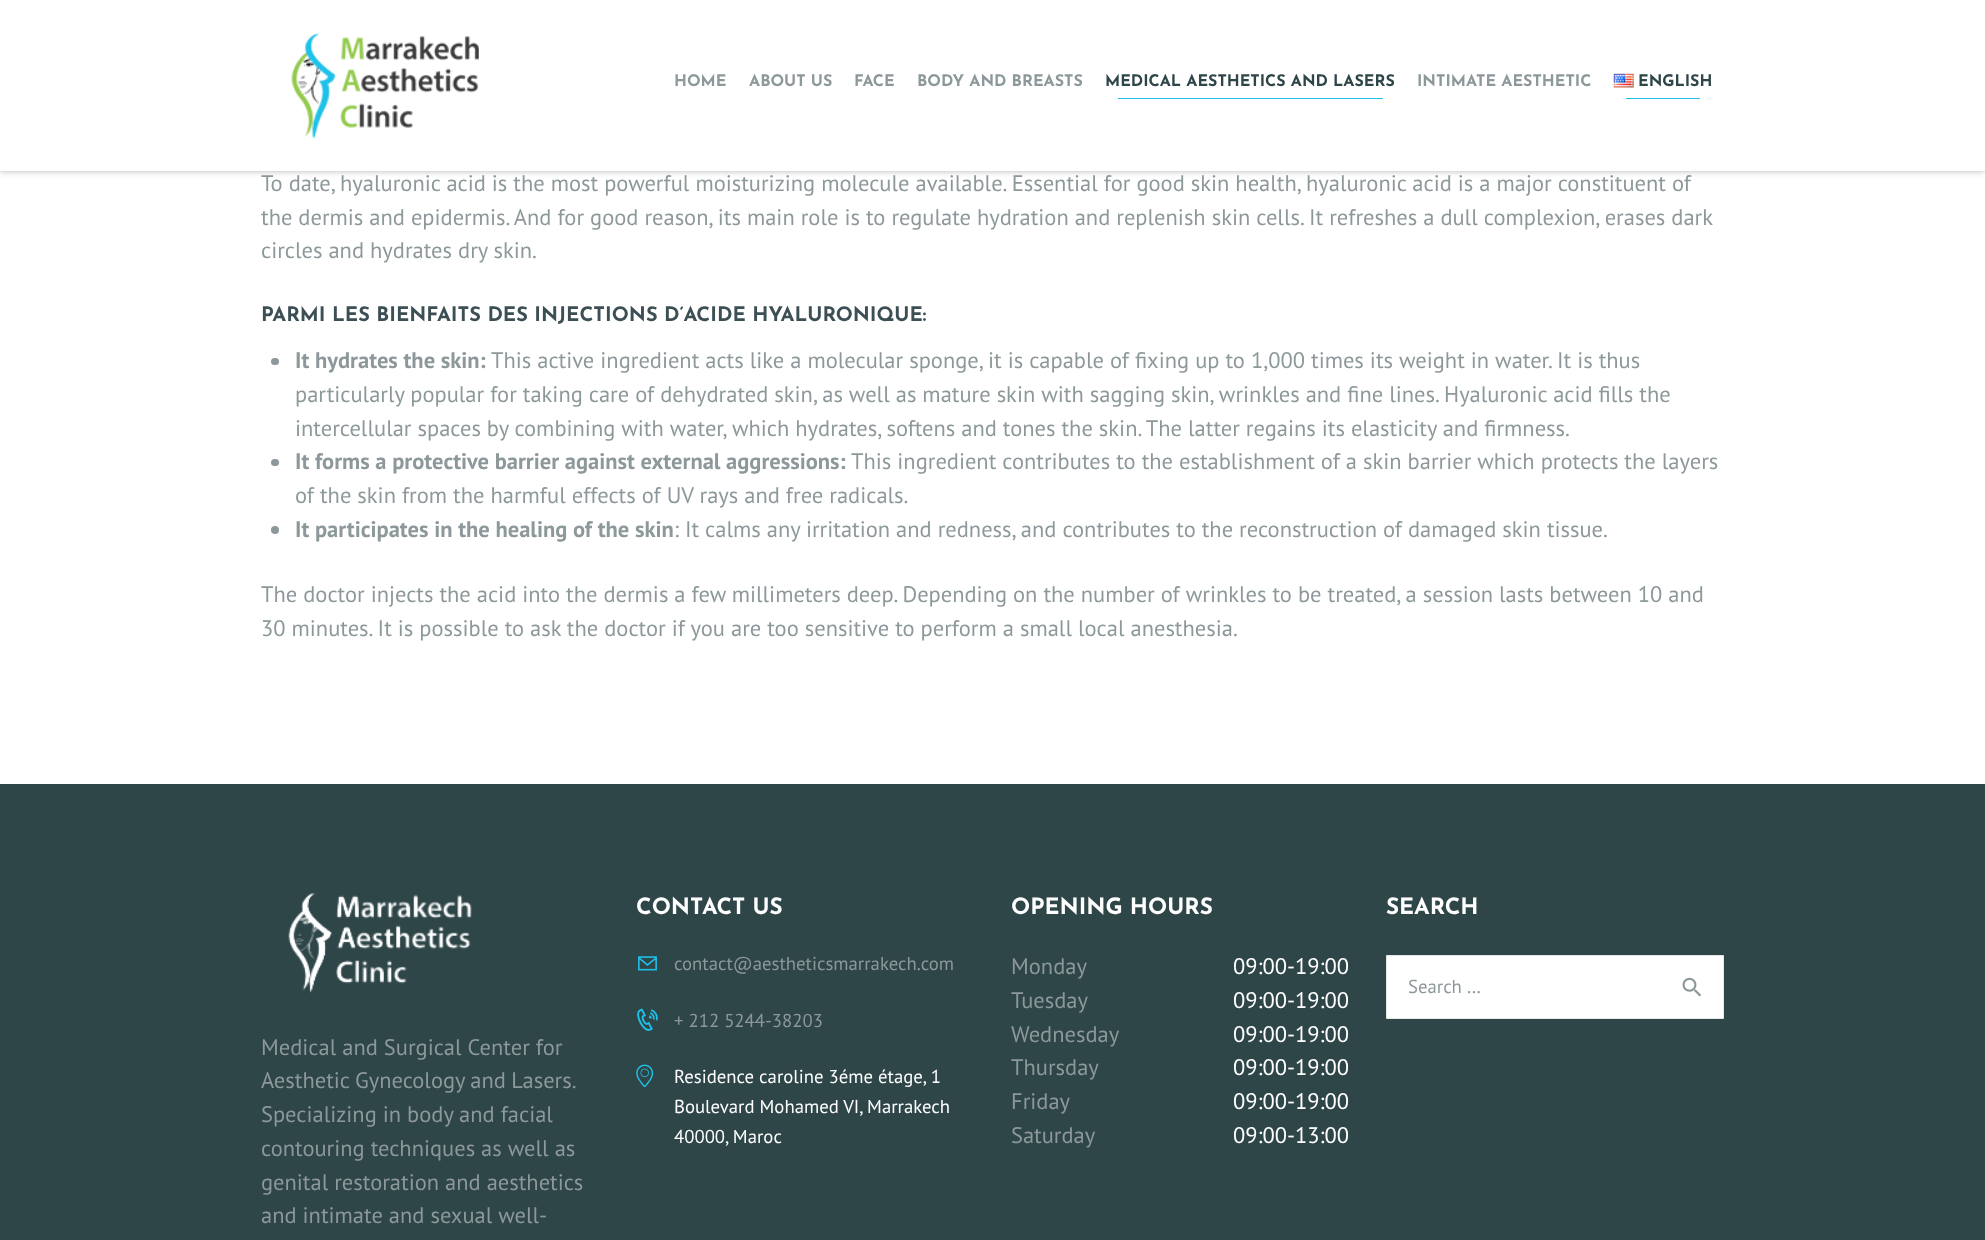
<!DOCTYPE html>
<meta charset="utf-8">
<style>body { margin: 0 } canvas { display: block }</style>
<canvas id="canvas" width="1985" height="1240"></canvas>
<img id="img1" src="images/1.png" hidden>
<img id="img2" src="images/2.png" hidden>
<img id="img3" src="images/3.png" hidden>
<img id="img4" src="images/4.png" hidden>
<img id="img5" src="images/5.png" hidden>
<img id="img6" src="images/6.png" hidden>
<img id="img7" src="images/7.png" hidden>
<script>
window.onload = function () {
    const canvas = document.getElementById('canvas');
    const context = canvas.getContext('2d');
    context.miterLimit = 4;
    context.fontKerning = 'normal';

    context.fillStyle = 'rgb(255, 255, 255)';
    context.fillRect(0, 0, 1985, 1240);
    context.fillStyle = 'rgba(0, 0, 0, 0.3)';
    context.filter = 'blur(3px)';
    context.beginPath();
    context.rect(0, 0, 1985, 171);
    context.fill();
    context.filter = 'none';
    context.fillStyle = 'rgb(255, 255, 255)';
    context.fillRect(0, 0, 1985, 171);
    context.drawImage(document.getElementById('img1'), 291, 33, 188, 106);
    context.fillStyle = 'rgb(31, 193, 232)';
    context.fillRect(1118, 98, 265, 1);
    context.drawImage(document.getElementById('img2'), 1613, 73, 21, 15);
    context.fillRect(1626, 98, 74, 1);
    context.fillStyle = 'rgb(141, 152, 154)';
    context.beginPath();
    context.roundRect(271, 358, 8, 7, 3.5);
    context.fill();
    context.beginPath();
    context.roundRect(271, 459, 8, 7, 3.5);
    context.fill();
    context.beginPath();
    context.arc(275, 530, 4, 0, 2 * Math.PI);
    context.fill();
    context.fillStyle = 'rgb(47, 70, 73)';
    context.fillRect(0, 784, 1985, 456);
    context.drawImage(document.getElementById('img3'), 638, 956, 19, 15);
    context.drawImage(document.getElementById('img4'), 637, 1008, 21, 23);
    context.drawImage(document.getElementById('img5'), 636, 1064, 18, 24);
    context.fillStyle = 'rgb(255, 255, 255)';
    context.beginPath();
    context.rect(1386.5, 955.5, 337, 63);
    context.fill();
    context.strokeStyle = 'rgb(231, 231, 231)';
    context.stroke();
    context.drawImage(document.getElementById('img6'), 1682, 977, 20, 20);
    context.drawImage(document.getElementById('img7'), 288, 893, 184, 100);
    context.font = 'bold 16px Josefin Sans';
    context.fillStyle = 'rgb(141, 152, 154)';
    context.fillText('HOME', 674, 86);
    context.fillText('ABOUT US', 749, 86);
    context.fillText('FACE', 854, 86);
    context.fillText('BODY AND BREASTS', 917, 86);
    context.fillStyle = 'rgb(47, 70, 73)';
    context.fillText('MEDICAL AESTHETICS AND LASERS', 1105, 86);
    context.fillStyle = 'rgb(141, 152, 154)';
    context.fillText('INTIMATE AESTHETIC', 1417, 86);
    context.fillStyle = 'rgb(47, 70, 73)';
    context.fillText('ENGLISH', 1638, 86);
    context.font = '22.5px PT Sans';
    context.fillStyle = 'rgb(141, 152, 154)';
    context.fillText('To date, hyaluronic acid is the most powerful moisturizing molecule available. Essential for good skin health, hyaluronic acid is a major constituent of', 261, 191);
    context.fillText('the dermis and epidermis. And for good reason, its main role is to regulate hydration and replenish skin cells. It refreshes a dull complexion, erases dark', 261, 225);
    context.fillText('circles and hydrates dry skin.', 261, 258);
    context.font = 'bold 20px Josefin Sans';
    context.fillStyle = 'rgb(60, 79, 84)';
    context.fillText('PARMI LES BIENFAITS DES INJECTIONS D’ACIDE HYALURONIQUE:', 261, 321);
    context.font = 'bold 22.5px PT Sans';
    context.fillStyle = 'rgb(141, 152, 154)';
    context.fillText('It hydrates the skin:', 295, 368);
    context.font = '22.5px PT Sans';
    context.fillText('This active ingredient acts like a molecular sponge, it is capable of fixing up to 1,000 times its weight in water. It is thus', 491, 368);
    context.fillText('particularly popular for taking care of dehydrated skin, as well as mature skin with sagging skin, wrinkles and fine lines. Hyaluronic acid fills the', 295, 402);
    context.fillText('intercellular spaces by combining with water, which hydrates, softens and tones the skin. The latter regains its elasticity and firmness.', 295, 436);
    context.font = 'bold 22.5px PT Sans';
    context.fillText('It forms a protective barrier against external aggressions:', 295, 469);
    context.font = '22.5px PT Sans';
    context.fillText('This ingredient contributes to the establishment of a skin barrier which protects the layers', 851, 469);
    context.fillText('of the skin from the harmful effects of UV rays and free radicals.', 295, 503);
    context.font = 'bold 22.5px PT Sans';
    context.fillText('It participates in the healing of the skin', 295, 537);
    context.font = '22.5px PT Sans';
    context.fillText(': It calms any irritation and redness, and contributes to the reconstruction of damaged skin tissue.', 674, 537);
    context.fillText('The doctor injects the acid into the dermis a few millimeters deep. Depending on the number of wrinkles to be treated, a session lasts between 10 and', 261, 602);
    context.fillText('30 minutes. It is possible to ask the doctor if you are too sensitive to perform a small local anesthesia.', 261, 636);
    context.font = 'bold 22.5px Josefin Sans';
    context.fillStyle = 'rgb(255, 255, 255)';
    context.fillText('CONTACT US', 636, 914);
    context.font = '18.75px PT Sans';
    context.fillStyle = 'rgb(141, 152, 154)';
    context.fillText('contact@aestheticsmarrakech.com', 674, 970);
    context.fillText('+ 212 5244-38203', 674, 1027);
    context.fillStyle = 'rgb(255, 255, 255)';
    context.fillText('Residence caroline 3éme étage, 1', 674, 1083);
    context.fillText('Boulevard Mohamed VI, Marrakech', 674, 1113);
    context.fillText('40000, Maroc', 674, 1143);
    context.font = 'bold 22.5px Josefin Sans';
    context.fillText('OPENING HOURS', 1011, 914);
    context.font = '22.5px PT Sans';
    context.fillStyle = 'rgb(141, 152, 154)';
    context.fillText('Monday', 1011, 974);
    context.fillStyle = 'rgb(255, 255, 255)';
    context.fillText('09:00-19:00', 1233, 974);
    context.fillStyle = 'rgb(141, 152, 154)';
    context.fillText('Tuesday', 1011, 1008);
    context.fillStyle = 'rgb(255, 255, 255)';
    context.fillText('09:00-19:00', 1233, 1008);
    context.fillStyle = 'rgb(141, 152, 154)';
    context.fillText('Wednesday', 1011, 1042);
    context.fillStyle = 'rgb(255, 255, 255)';
    context.fillText('09:00-19:00', 1233, 1042);
    context.fillStyle = 'rgb(141, 152, 154)';
    context.fillText('Thursday', 1011, 1075);
    context.fillStyle = 'rgb(255, 255, 255)';
    context.fillText('09:00-19:00', 1233, 1075);
    context.fillStyle = 'rgb(141, 152, 154)';
    context.fillText('Friday', 1011, 1109);
    context.fillStyle = 'rgb(255, 255, 255)';
    context.fillText('09:00-19:00', 1233, 1109);
    context.fillStyle = 'rgb(141, 152, 154)';
    context.fillText('Saturday', 1011, 1143);
    context.fillStyle = 'rgb(255, 255, 255)';
    context.fillText('09:00-13:00', 1233, 1143);
    context.font = 'bold 22.5px Josefin Sans';
    context.fillText('SEARCH', 1386, 914);
    context.font = '18.75px PT Sans';
    context.fillStyle = 'rgb(141, 152, 154)';
    context.fillText('Search …', 1408, 993);
    context.font = '22.5px PT Sans';
    context.fillText('Medical and Surgical Center for', 261, 1055);
    context.wordSpacing = '-0.5px';
    context.fillText('Aesthetic Gynecology and Lasers.', 261, 1088);
    context.wordSpacing = '0px';
    context.fillText('Specializing in body and facial', 261, 1122);
    context.fillText('contouring techniques as well as', 261, 1156);
    context.fillText('genital restoration and aesthetics', 261, 1190);
    context.fillText('and intimate and sexual well-', 261, 1223);
};
</script>
